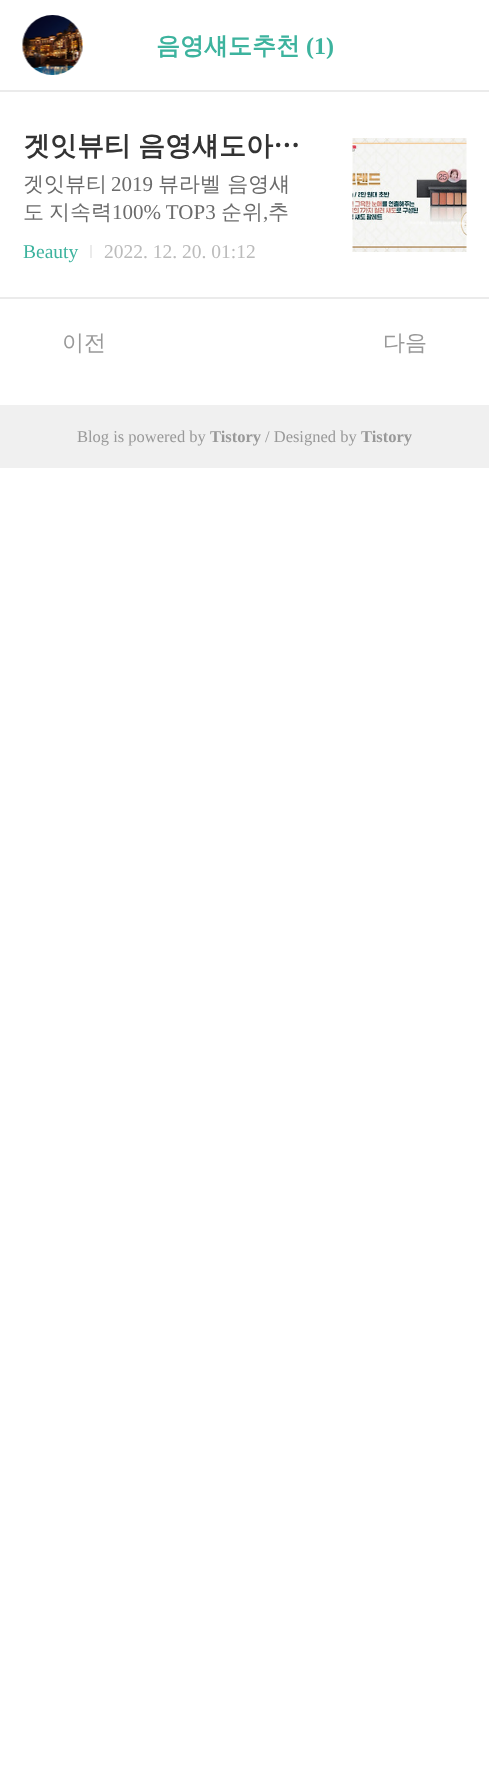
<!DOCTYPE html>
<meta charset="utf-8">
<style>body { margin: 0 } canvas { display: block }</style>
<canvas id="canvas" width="489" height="1775"></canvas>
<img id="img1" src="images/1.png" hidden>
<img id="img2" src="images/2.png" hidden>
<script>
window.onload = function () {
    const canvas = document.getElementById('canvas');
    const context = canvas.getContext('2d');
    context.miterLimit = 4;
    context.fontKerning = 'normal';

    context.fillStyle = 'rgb(255, 255, 255)';
    context.fillRect(0, 0, 489, 1775);
    context.fillStyle = 'rgb(235, 235, 235)';
    context.fillRect(0, 90, 489, 2);
    context.drawImage(document.getElementById('img1'), 22, 15, 61, 60);
    context.fillRect(0, 297, 489, 2);
    context.drawImage(document.getElementById('img2'), 352, 138, 115, 114);
    context.fillRect(90, 245, 2, 13);
    context.fillStyle = 'rgb(240, 240, 240)';
    context.fillRect(0, 405, 489, 63);
    context.font = 'bold 24px WenQuanYi Zen Hei';
    context.fillStyle = 'rgb(61, 179, 158)';
    context.fillText('음영섀도추천', 156, 54);
    context.font = 'bold 24px Liberation Serif';
    context.fillText('(1)', 306, 54);
    context.wordSpacing = '-1px';
    context.font = 'bold 27px WenQuanYi Zen Hei';
    context.fillStyle = 'rgb(51, 51, 51)';
    context.fillText('겟잇뷰티 음영섀도아…', 23, 155);
    context.wordSpacing = '0px';
    context.font = '500 21px WenQuanYi Zen Hei';
    context.fillStyle = 'rgb(107, 107, 107)';
    context.fillText('겟잇뷰티', 23, 191);
    context.font = '21px Liberation Serif';
    context.fillText('2019', 111, 191);
    context.font = '500 21px WenQuanYi Zen Hei';
    context.fillText('뷰라벨 음영섀', 158, 191);
    context.fillText('도', 23, 219);
    context.fillText('지속력', 49, 219);
    context.font = '21px Liberation Serif';
    context.fillText('100% TOP3', 112, 219);
    context.font = '500 21px WenQuanYi Zen Hei';
    context.fillText('순위', 221, 219);
    context.font = '21px Liberation Serif';
    context.fillText(',', 263, 219);
    context.font = '500 21px WenQuanYi Zen Hei';
    context.fillText('추', 268, 219);
    context.font = '19.5px Liberation Serif';
    context.fillStyle = 'rgb(61, 179, 158)';
    context.fillText('Beauty', 23, 258);
    context.fillStyle = 'rgb(187, 187, 187)';
    context.fillText('2022. 12. 20. 01:12', 104, 258);
    context.font = '500 22px WenQuanYi Zen Hei';
    context.fillStyle = 'rgb(153, 153, 153)';
    context.fillText('이전', 62, 350);
    context.fillText('다음', 383, 350);
    context.font = '16.5px Liberation Serif';
    context.fillText('Blog is powered by', 77, 442);
    context.font = 'bold 16.5px Liberation Serif';
    context.fillText('Tistory', 210, 442);
    context.font = '16.5px Liberation Serif';
    context.fillText('/ Designed by', 265, 442);
    context.font = 'bold 16.5px Liberation Serif';
    context.fillText('Tistory', 361, 442);
};
</script>
